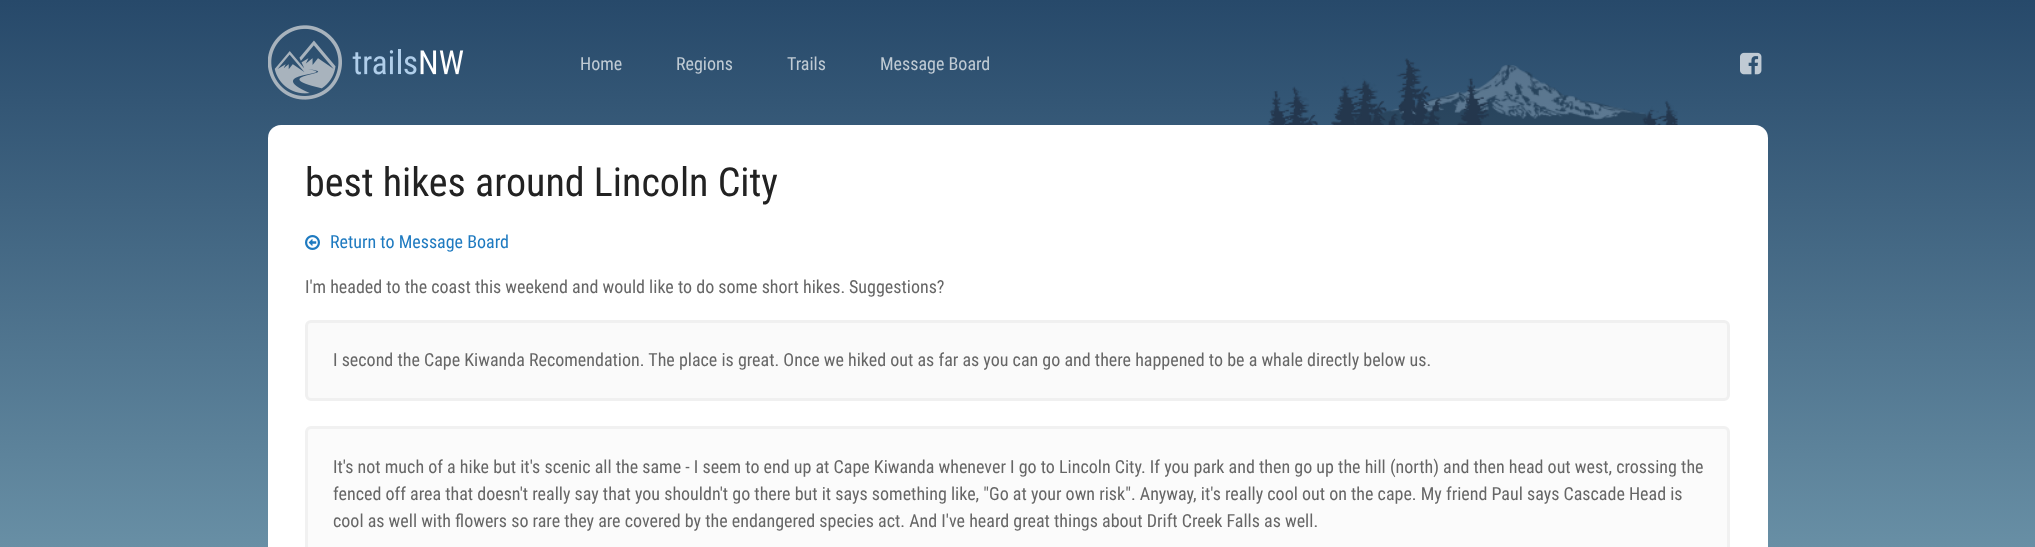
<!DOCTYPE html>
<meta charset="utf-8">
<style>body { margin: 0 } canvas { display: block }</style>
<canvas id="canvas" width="2035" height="547"></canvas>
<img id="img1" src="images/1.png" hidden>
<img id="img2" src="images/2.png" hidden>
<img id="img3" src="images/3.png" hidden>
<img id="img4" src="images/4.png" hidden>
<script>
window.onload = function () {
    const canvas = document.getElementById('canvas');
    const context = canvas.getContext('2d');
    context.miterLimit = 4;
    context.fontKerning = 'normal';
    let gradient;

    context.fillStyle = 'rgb(255, 255, 255)';
    context.fillRect(0, 0, 2035, 547);
    gradient = context.createLinearGradient(1018, 0, 1018, 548);
    gradient.addColorStop(0, 'rgb(39, 73, 106)');
    gradient.addColorStop(1, 'rgb(104, 143, 165)');
    context.fillStyle = gradient;
    context.fillRect(0, 0, 2035, 547);
    context.drawImage(document.getElementById('img1'), 1268, 58, 410, 67);
    context.drawImage(document.getElementById('img2'), 268, 25, 196, 75);
    context.drawImage(document.getElementById('img3'), 1740, 52, 22, 23);
    context.fillStyle = 'rgb(255, 255, 255)';
    context.beginPath();
    context.roundRect(268, 125, 1500, 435, 13);
    context.fill();
    context.drawImage(document.getElementById('img4'), 305, 235, 15, 15);
    context.fillStyle = 'rgb(250, 250, 250)';
    context.beginPath();
    context.roundRect(306.5, 321.5, 1422, 78, 4.5);
    context.fill();
    context.strokeStyle = 'rgb(240, 240, 240)';
    context.lineWidth = 3;
    context.stroke();
    context.fillStyle = 'rgb(251, 251, 251)';
    context.beginPath();
    context.roundRect(306.5, 427.5, 1422, 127, 4.5);
    context.fill();
    context.strokeStyle = 'rgb(241, 241, 241)';
    context.stroke();
    context.font = '18px Roboto Condensed';
    context.fillStyle = 'rgb(192, 203, 212)';
    context.fillText('Home', 580, 70);
    context.fillText('Regions', 676, 70);
    context.fillText('Trails', 787, 70);
    context.fillText('Message Board', 880, 70);
    context.font = '40px Roboto Condensed';
    context.fillStyle = 'rgb(34, 34, 34)';
    context.fillText('best hikes around Lincoln City', 305, 196);
    context.font = '18px Roboto Condensed';
    context.fillStyle = 'rgb(30, 122, 192)';
    context.fillText('Return to Message Board', 330, 248);
    context.fillStyle = 'rgb(102, 102, 102)';
    context.fillText('I\'m headed to the coast this weekend and would like to do some short hikes.', 305, 293);
    context.fillText('Suggestions?', 849, 293);
    context.fillText('I second the Cape Kiwanda Recomendation. The place is great. Once we hiked out as far as you can go and there happened to be a whale directly below us.', 333, 366);
    context.fillText('It\'s not much of a hike but it\'s scenic all the same - I seem to end up at Cape Kiwanda whenever I go to Lincoln City. If you park and then go up the hill (north) and then head out west, crossing the', 333, 473);
    context.fillText('fenced off area that doesn\'t really say that you shouldn\'t go there but it says something like, "Go at your own risk". Anyway, it\'s really cool out on the cape. My friend Paul says Cascade Head is', 333, 500);
    context.fillText('cool as well with flowers so rare they are covered by the endangered species act. And I\'ve heard great things about Drift Creek Falls as well.', 333, 527);
};
</script>
